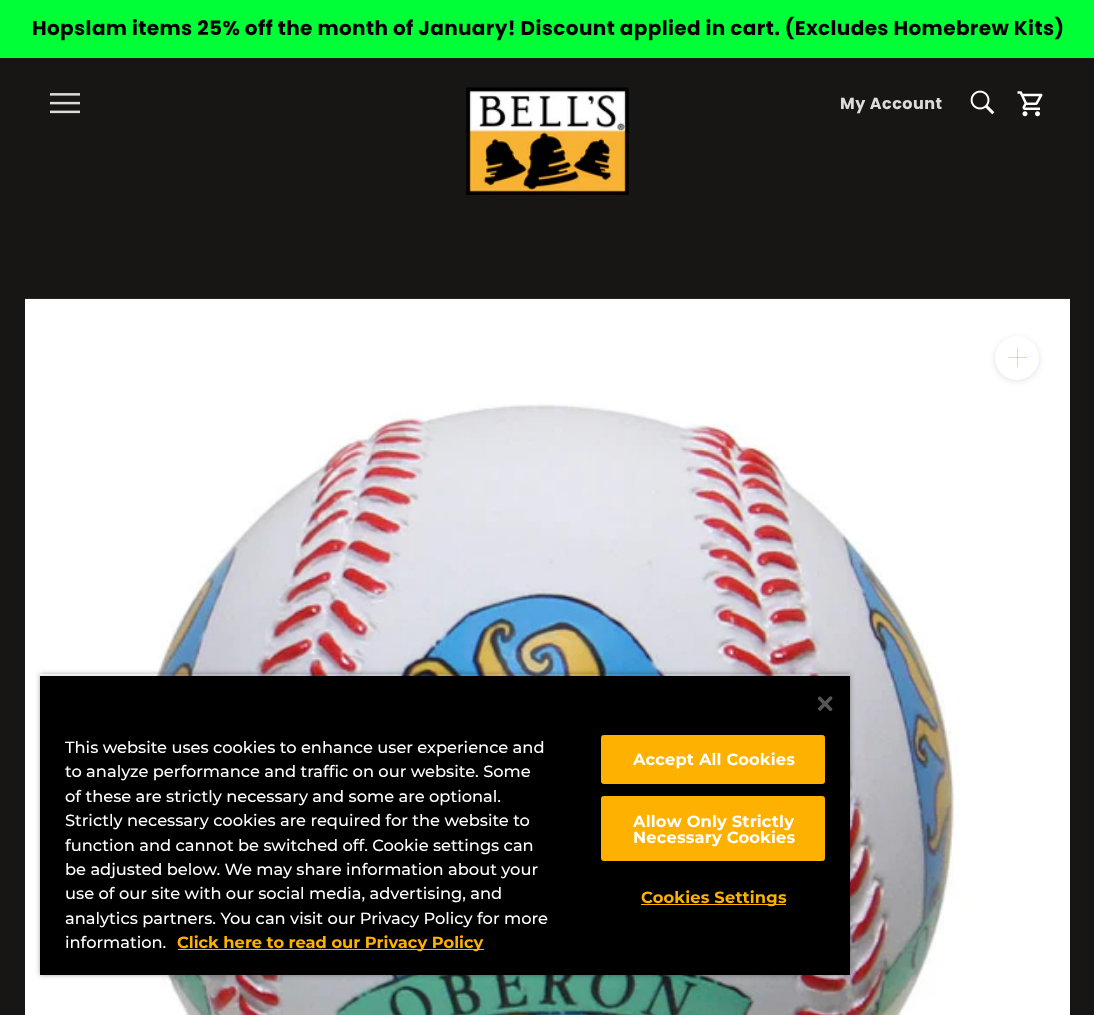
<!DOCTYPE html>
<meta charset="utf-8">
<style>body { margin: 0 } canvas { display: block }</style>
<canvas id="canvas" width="1094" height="1015"></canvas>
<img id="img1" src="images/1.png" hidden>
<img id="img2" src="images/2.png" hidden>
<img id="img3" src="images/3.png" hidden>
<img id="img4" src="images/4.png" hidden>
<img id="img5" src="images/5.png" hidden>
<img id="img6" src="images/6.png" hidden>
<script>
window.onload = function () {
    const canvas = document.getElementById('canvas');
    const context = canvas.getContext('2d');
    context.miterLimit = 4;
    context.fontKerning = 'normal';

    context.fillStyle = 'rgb(23, 22, 21)';
    context.fillRect(0, 0, 1094, 1015);
    context.fillStyle = 'rgb(0, 255, 54)';
    context.fillRect(0, 0, 1094, 58);
    context.drawImage(document.getElementById('img1'), 50, 93, 30, 21);
    context.drawImage(document.getElementById('img2'), 466, 87, 163, 108);
    context.drawImage(document.getElementById('img3'), 970, 90, 25, 25);
    context.drawImage(document.getElementById('img4'), 1017, 91, 26, 26);
    context.drawImage(document.getElementById('img5'), 25, 298, 1045, 717);
    context.fillStyle = 'rgba(54, 54, 54, 0.15)';
    context.filter = 'blur(3px)';
    context.beginPath();
    context.roundRect(995, 338, 44, 43, 21.5);
    context.fill();
    context.filter = 'none';
    context.fillStyle = 'rgb(255, 255, 255)';
    context.beginPath();
    context.arc(1017, 358, 22, 0, 2 * Math.PI);
    context.fill();
    context.fillStyle = 'rgb(255, 216, 128)';
    context.fillRect(1017, 348, 1, 19);
    context.fillStyle = 'rgba(255, 177, 0, 0.5)';
    context.fillRect(1008, 357, 19, 1);
    context.save();
    context.beginPath();
    context.moveTo(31, 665);
    context.lineTo(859, 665);
    context.lineTo(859, 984);
    context.lineTo(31, 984);
    context.closePath();
    context.moveTo(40, 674);
    context.lineTo(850, 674);
    context.lineTo(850, 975);
    context.lineTo(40, 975);
    context.closePath();
    context.clip('evenodd');
    context.fillStyle = 'rgba(0, 0, 0, 0.35)';
    context.filter = 'blur(2.5px)';
    context.beginPath();
    context.rect(40, 674, 810, 301);
    context.fill();
    context.filter = 'none';
    context.restore();
    context.save();
    context.beginPath();
    context.rect(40, 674, 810, 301);
    context.clip();
    context.fillStyle = 'rgba(0, 0, 0, 0.2)';
    context.filter = 'blur(2.5px)';
    context.beginPath();
    context.rect(40, 676, 810, 299);
    context.fill();
    context.filter = 'none';
    context.restore();
    context.fillStyle = 'rgb(0, 0, 0)';
    context.fillRect(40, 676, 810, 299);
    context.drawImage(document.getElementById('img6'), 818, 696, 15, 15);
    context.fillStyle = 'rgb(255, 177, 0)';
    context.fillRect(178, 949, 306, 1);
    context.beginPath();
    context.roundRect(601.5, 735.5, 223, 48, 2);
    context.fill();
    context.strokeStyle = 'rgb(255, 177, 0)';
    context.stroke();
    context.beginPath();
    context.roundRect(601.5, 796.5, 223, 64, 2);
    context.fill();
    context.stroke();
    context.fillRect(641, 904, 145, 1);
    context.letterSpacing = '0.38px';
    context.font = 'bold 20px Poppins';
    context.fillStyle = 'rgb(0, 0, 0)';
    context.fillText('Hopslam items 25% off the month of January! Discount applied in cart. (Excludes Homebrew Kits)', 32, 35);
    context.letterSpacing = '0.5px';
    context.font = 'bold 16px Poppins';
    context.fillStyle = 'rgb(223, 219, 219)';
    context.fillText('My Account', 840, 109);
    context.letterSpacing = '0px';
    context.font = '500 16.25px Montserrat';
    context.fillStyle = 'rgb(255, 255, 255)';
    context.fillText('This website uses cookies to enhance user experience and', 65, 753);
    context.fillText('to analyze performance and traffic on our website. Some', 65, 777);
    context.fillText('of these are strictly necessary and some are optional.', 65, 802);
    context.fillText('Strictly necessary cookies are required for the website to', 65, 826);
    context.fillText('function and cannot be switched off. Cookie settings can', 65, 851);
    context.fillText('be adjusted below. We may share information about your', 65, 875);
    context.fillText('use of our site with our social media, advertising, and', 65, 899);
    context.fillText('analytics partners. You can visit our Privacy Policy for more', 65, 924);
    context.fillText('information.', 65, 948);
    context.font = 'bold 16.25px Montserrat';
    context.fillStyle = 'rgb(255, 177, 0)';
    context.fillText('Click here to read our Privacy Policy', 177, 948);
    context.letterSpacing = '0.2px';
    context.fillStyle = 'rgb(255, 255, 255)';
    context.fillText('Accept All Cookies', 633, 765);
    context.fillText('Allow Only Strictly', 633, 827);
    context.fillText('Necessary Cookies', 633, 843);
    context.fillStyle = 'rgb(255, 177, 0)';
    context.fillText('Cookies Settings', 641, 903);
};
</script>
